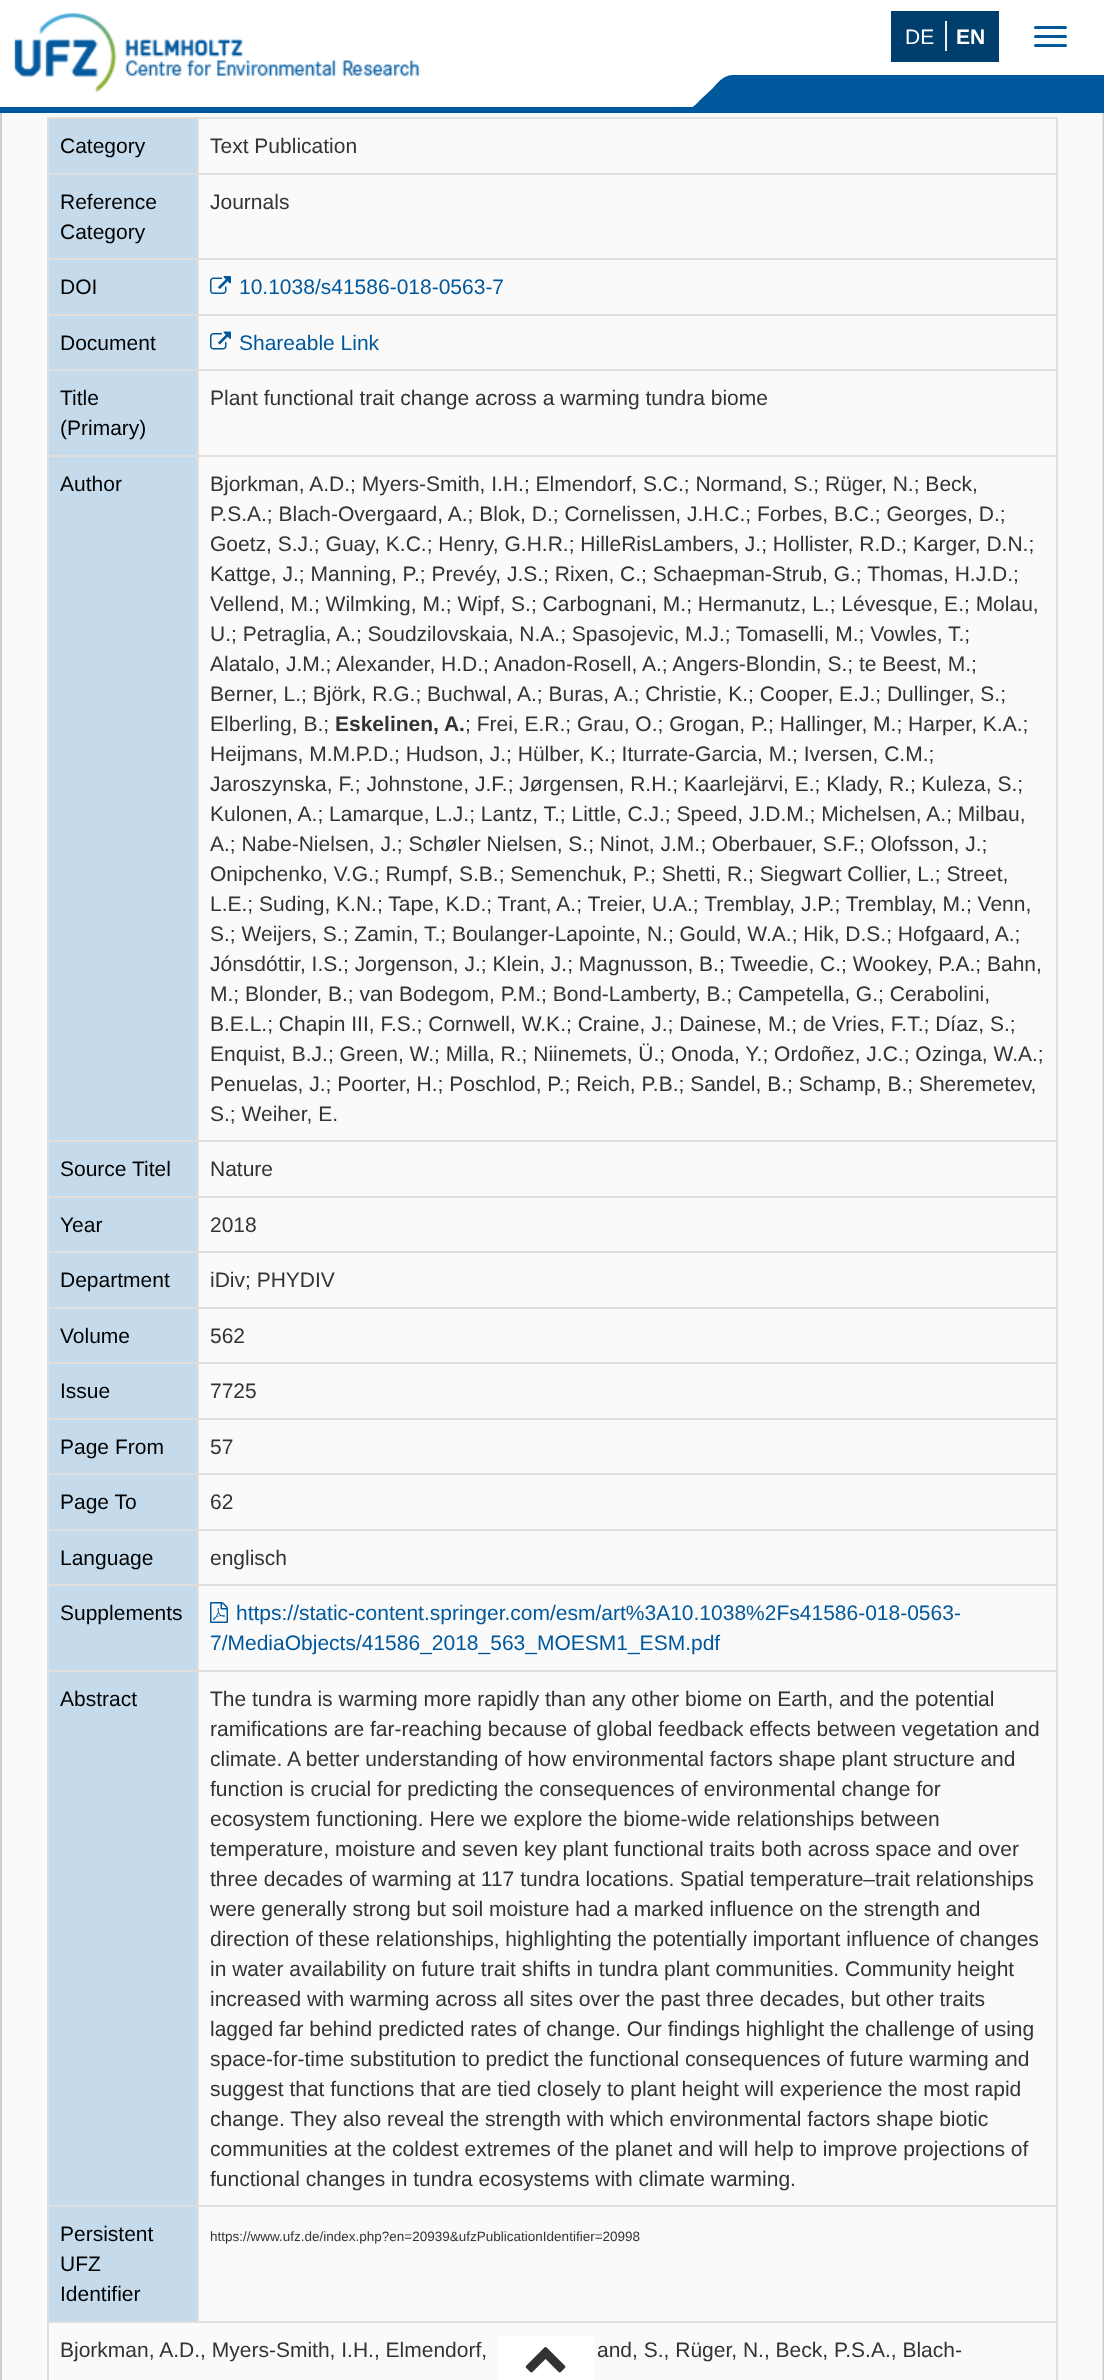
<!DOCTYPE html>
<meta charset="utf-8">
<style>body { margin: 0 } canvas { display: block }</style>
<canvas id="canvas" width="1104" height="2380"></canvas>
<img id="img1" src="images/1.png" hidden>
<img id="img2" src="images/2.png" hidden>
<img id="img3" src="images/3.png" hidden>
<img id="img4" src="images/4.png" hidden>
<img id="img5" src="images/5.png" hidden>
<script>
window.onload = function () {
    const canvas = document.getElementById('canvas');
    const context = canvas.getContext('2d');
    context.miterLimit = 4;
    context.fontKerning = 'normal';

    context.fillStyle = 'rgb(250, 250, 250)';
    context.fillRect(0, 0, 1104, 2380);
    context.strokeStyle = 'rgb(223, 223, 223)';
    context.lineWidth = 2;
    context.strokeRect(1, -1, 1102, 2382);
    context.save();
    context.beginPath();
    context.moveTo(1, 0);
    context.lineTo(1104, 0);
    context.lineTo(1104, 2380);
    context.lineTo(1, 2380);
    context.closePath();
    context.moveTo(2, -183);
    context.lineTo(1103, -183);
    context.lineTo(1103, 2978);
    context.lineTo(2, 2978);
    context.closePath();
    context.clip('evenodd');
    context.fillStyle = 'rgba(0, 0, 0, 0.5)';
    context.filter = 'blur(60px)';
    context.beginPath();
    context.rect(182, -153, 861, 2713);
    context.fill();
    context.filter = 'none';
    context.restore();
    context.save();
    context.beginPath();
    context.rect(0, 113, 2, 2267);
    context.clip();
    context.fillStyle = 'rgba(0, 0, 0, 0.5)';
    context.filter = 'blur(60px)';
    context.beginPath();
    context.rect(62, -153, 861, 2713);
    context.fill();
    context.filter = 'none';
    context.restore();
    context.fillStyle = 'rgb(255, 255, 255)';
    context.fillRect(0, 0, 1104, 107);
    context.fillStyle = 'rgb(0, 88, 156)';
    context.fillRect(0, 110, 1104, 3);
    context.fillRect(0, 107, 732, 3);
    context.drawImage(document.getElementById('img1'), 14, 13, 406, 80);
    context.fillStyle = 'rgb(0, 62, 110)';
    context.fillRect(891, 11, 108, 51);
    context.fillStyle = 'rgb(240, 240, 240)';
    context.fillRect(945, 21, 2, 30);
    context.fillStyle = 'rgb(0, 88, 156)';
    context.beginPath();
    context.roundRect(1034, 26, 33, 3, 1.5);
    context.fill();
    context.beginPath();
    context.roundRect(1034, 35, 33, 3, 1.5);
    context.fill();
    context.beginPath();
    context.roundRect(1034, 44, 33, 3, 1.5);
    context.fill();
    context.beginPath();
    context.moveTo(733, 110);
    context.lineTo(685, 109);
    context.bezierCurveTo(691, 109, 696, 105, 700, 100);
    context.lineTo(713, 88);
    context.bezierCurveTo(718, 82, 724, 75, 733, 75);
    context.closePath();
    context.fill();
    context.fillRect(732, 75, 372, 35);
    context.fillStyle = 'rgb(197, 219, 236)';
    context.fillRect(49, 119, 148, 54);
    context.fillStyle = 'rgb(223, 223, 223)';
    context.fillRect(197, 117, 861, 2);
    context.fillRect(197, 173, 861, 2);
    context.fillRect(197, 258, 861, 2);
    context.fillRect(197, 314, 861, 2);
    context.fillRect(197, 369, 861, 2);
    context.fillRect(197, 455, 861, 2);
    context.fillRect(197, 1140, 861, 2);
    context.fillRect(197, 1196, 861, 2);
    context.fillRect(197, 1251, 861, 2);
    context.fillRect(197, 1307, 861, 2);
    context.fillRect(197, 1362, 861, 2);
    context.fillRect(197, 1418, 861, 2);
    context.fillRect(197, 1473, 861, 2);
    context.fillRect(197, 1529, 861, 2);
    context.fillRect(197, 1584, 861, 2);
    context.fillRect(197, 1670, 861, 2);
    context.fillRect(197, 2205, 861, 2);
    context.fillRect(47, 2321, 1011, 2);
    context.fillRect(197, 2205, 2, 117);
    context.fillRect(47, 2205, 151, 2);
    context.fillRect(197, 1670, 2, 537);
    context.fillRect(47, 1670, 151, 2);
    context.fillRect(197, 1584, 2, 87);
    context.fillRect(47, 1584, 151, 2);
    context.fillRect(197, 1529, 2, 57);
    context.fillRect(47, 1529, 151, 2);
    context.fillRect(197, 1473, 2, 57);
    context.fillRect(47, 1473, 151, 2);
    context.fillRect(197, 1418, 2, 57);
    context.fillRect(47, 1418, 151, 2);
    context.fillRect(197, 1362, 2, 57);
    context.fillRect(47, 1362, 151, 2);
    context.fillRect(197, 1307, 2, 57);
    context.fillRect(47, 1307, 151, 2);
    context.fillRect(197, 1251, 2, 57);
    context.fillRect(47, 1251, 151, 2);
    context.fillRect(197, 1196, 2, 57);
    context.fillRect(47, 1196, 151, 2);
    context.fillRect(197, 1140, 2, 57);
    context.fillRect(47, 1140, 151, 2);
    context.fillRect(197, 455, 2, 687);
    context.fillRect(47, 455, 151, 2);
    context.fillRect(197, 369, 2, 87);
    context.fillRect(47, 369, 151, 2);
    context.fillRect(197, 314, 2, 57);
    context.fillRect(47, 314, 151, 2);
    context.fillRect(197, 258, 2, 57);
    context.fillRect(47, 258, 151, 2);
    context.fillRect(197, 173, 2, 87);
    context.fillRect(47, 173, 151, 2);
    context.fillRect(197, 117, 2, 57);
    context.fillRect(47, 117, 151, 2);
    context.fillRect(47, 2321, 2, 59);
    context.fillRect(47, 2205, 2, 117);
    context.fillRect(47, 1670, 2, 537);
    context.fillRect(47, 1584, 2, 87);
    context.fillRect(47, 1529, 2, 57);
    context.fillRect(47, 1473, 2, 57);
    context.fillRect(47, 1418, 2, 57);
    context.fillRect(47, 1362, 2, 57);
    context.fillRect(47, 1307, 2, 57);
    context.fillRect(47, 1251, 2, 57);
    context.fillRect(47, 1196, 2, 57);
    context.fillRect(47, 1140, 2, 57);
    context.fillRect(47, 455, 2, 687);
    context.fillRect(47, 369, 2, 87);
    context.fillRect(47, 314, 2, 57);
    context.fillRect(47, 258, 2, 57);
    context.fillRect(47, 173, 2, 87);
    context.fillRect(47, 117, 2, 57);
    context.fillRect(1056, 2321, 2, 59);
    context.fillRect(1056, 2205, 2, 117);
    context.fillRect(1056, 1670, 2, 537);
    context.fillRect(1056, 1584, 2, 87);
    context.fillRect(1056, 1529, 2, 57);
    context.fillRect(1056, 1473, 2, 57);
    context.fillRect(1056, 1418, 2, 57);
    context.fillRect(1056, 1362, 2, 57);
    context.fillRect(1056, 1307, 2, 57);
    context.fillRect(1056, 1251, 2, 57);
    context.fillRect(1056, 1196, 2, 57);
    context.fillRect(1056, 1140, 2, 57);
    context.fillRect(1056, 455, 2, 687);
    context.fillRect(1056, 369, 2, 87);
    context.fillRect(1056, 314, 2, 57);
    context.fillRect(1056, 258, 2, 57);
    context.fillRect(1056, 173, 2, 87);
    context.fillRect(1056, 117, 2, 57);
    context.fillStyle = 'rgb(197, 219, 236)';
    context.fillRect(49, 175, 148, 83);
    context.fillRect(49, 260, 148, 54);
    context.drawImage(document.getElementById('img2'), 210, 276, 21, 18);
    context.fillRect(49, 316, 148, 53);
    context.drawImage(document.getElementById('img3'), 210, 331, 21, 19);
    context.fillRect(49, 371, 148, 84);
    context.fillRect(49, 457, 148, 683);
    context.fillRect(49, 1142, 148, 54);
    context.fillRect(49, 1198, 148, 53);
    context.fillRect(49, 1253, 148, 54);
    context.fillRect(49, 1309, 148, 53);
    context.fillRect(49, 1364, 148, 54);
    context.fillRect(49, 1420, 148, 53);
    context.fillRect(49, 1475, 148, 54);
    context.fillRect(49, 1531, 148, 53);
    context.fillRect(49, 1586, 148, 84);
    context.drawImage(document.getElementById('img4'), 210, 1602, 18, 21);
    context.fillRect(49, 1672, 148, 533);
    context.fillRect(49, 2207, 148, 114);
    context.fillStyle = 'rgb(255, 255, 255)';
    context.fillRect(497, 2336, 97, 44);
    context.drawImage(document.getElementById('img5'), 525, 2347, 41, 26);
    context.font = '21px Liberation Sans';
    context.fillText('DE', 905, 44);
    context.font = 'bold 21px Liberation Sans';
    context.fillText('EN', 956, 44);
    context.font = '21px Liberation Sans';
    context.fillStyle = 'rgb(0, 0, 0)';
    context.fillText('Category', 60, 153);
    context.fillStyle = 'rgb(51, 51, 51)';
    context.fillText('Text Publication', 210, 153);
    context.fillStyle = 'rgb(0, 0, 0)';
    context.fillText('Reference', 60, 209);
    context.fillText('Category', 60, 239);
    context.fillStyle = 'rgb(51, 51, 51)';
    context.fillText('Journals', 210, 209);
    context.fillStyle = 'rgb(0, 0, 0)';
    context.fillText('DOI', 60, 294);
    context.fillStyle = 'rgb(0, 88, 156)';
    context.fillText('10.1038/s41586-018-0563-7', 239, 294);
    context.fillStyle = 'rgb(0, 0, 0)';
    context.fillText('Document', 60, 350);
    context.fillStyle = 'rgb(0, 88, 156)';
    context.fillText('Shareable Link', 239, 350);
    context.fillStyle = 'rgb(0, 0, 0)';
    context.fillText('Title', 60, 405);
    context.fillText('(Primary)', 60, 435);
    context.fillStyle = 'rgb(51, 51, 51)';
    context.fillText('Plant functional trait change across a warming tundra biome', 210, 405);
    context.fillStyle = 'rgb(0, 0, 0)';
    context.fillText('Author', 60, 491);
    context.fillStyle = 'rgb(51, 51, 51)';
    context.fillText('Bjorkman, A.D.; Myers-Smith, I.H.; Elmendorf, S.C.; Normand, S.; Rüger, N.; Beck,', 210, 491);
    context.fillText('P.S.A.; Blach-Overgaard, A.; Blok, D.; Cornelissen, J.H.C.; Forbes, B.C.; Georges, D.;', 210, 521);
    context.fillText('Goetz, S.J.; Guay, K.C.; Henry, G.H.R.; HilleRisLambers, J.; Hollister, R.D.; Karger, D.N.;', 210, 551);
    context.fillText('Kattge, J.; Manning, P.; Prevéy, J.S.; Rixen, C.; Schaepman-Strub, G.; Thomas, H.J.D.;', 210, 581);
    context.fillText('Vellend, M.; Wilmking, M.; Wipf, S.; Carbognani, M.; Hermanutz, L.; Lévesque, E.; Molau,', 210, 611);
    context.fillText('U.; Petraglia, A.; Soudzilovskaia, N.A.; Spasojevic, M.J.; Tomaselli, M.; Vowles, T.;', 210, 641);
    context.fillText('Alatalo, J.M.; Alexander, H.D.; Anadon-Rosell, A.; Angers-Blondin, S.; te Beest, M.;', 210, 671);
    context.fillText('Berner, L.; Björk, R.G.; Buchwal, A.; Buras, A.; Christie, K.; Cooper, E.J.; Dullinger, S.;', 210, 701);
    context.fillText('Elberling, B.;', 210, 731);
    context.font = 'bold 21px Liberation Sans';
    context.fillText('Eskelinen, A.', 335, 731);
    context.font = '21px Liberation Sans';
    context.fillText('; Frei, E.R.; Grau, O.; Grogan, P.; Hallinger, M.; Harper, K.A.;', 465, 731);
    context.fillText('Heijmans, M.M.P.D.; Hudson, J.; Hülber, K.; Iturrate-Garcia, M.; Iversen, C.M.;', 210, 761);
    context.fillText('Jaroszynska, F.; Johnstone, J.F.; Jørgensen, R.H.; Kaarlejärvi, E.; Klady, R.; Kuleza, S.;', 210, 791);
    context.fillText('Kulonen, A.; Lamarque, L.J.; Lantz, T.; Little, C.J.; Speed, J.D.M.; Michelsen, A.; Milbau,', 210, 821);
    context.fillText('A.; Nabe-Nielsen, J.; Schøler Nielsen, S.; Ninot, J.M.; Oberbauer, S.F.; Olofsson, J.;', 210, 851);
    context.fillText('Onipchenko, V.G.; Rumpf, S.B.; Semenchuk, P.; Shetti, R.; Siegwart Collier, L.; Street,', 210, 881);
    context.fillText('L.E.; Suding, K.N.; Tape, K.D.; Trant, A.; Treier, U.A.; Tremblay, J.P.; Tremblay, M.; Venn,', 210, 911);
    context.fillText('S.; Weijers, S.; Zamin, T.; Boulanger-Lapointe, N.; Gould, W.A.; Hik, D.S.; Hofgaard, A.;', 210, 941);
    context.fillText('Jónsdóttir, I.S.; Jorgenson, J.; Klein, J.; Magnusson, B.; Tweedie, C.; Wookey, P.A.; Bahn,', 210, 971);
    context.fillText('M.; Blonder, B.; van Bodegom, P.M.; Bond-Lamberty, B.; Campetella, G.; Cerabolini,', 210, 1001);
    context.fillText('B.E.L.; Chapin III, F.S.; Cornwell, W.K.; Craine, J.; Dainese, M.; de Vries, F.T.; Díaz, S.;', 210, 1031);
    context.fillText('Enquist, B.J.; Green, W.; Milla, R.; Niinemets, Ü.; Onoda, Y.; Ordoñez, J.C.; Ozinga, W.A.;', 210, 1061);
    context.fillText('Penuelas, J.; Poorter, H.; Poschlod, P.; Reich, P.B.; Sandel, B.; Schamp, B.; Sheremetev,', 210, 1091);
    context.fillText('S.; Weiher, E.', 210, 1121);
    context.fillStyle = 'rgb(0, 0, 0)';
    context.fillText('Source Titel', 60, 1176);
    context.fillStyle = 'rgb(51, 51, 51)';
    context.fillText('Nature', 210, 1176);
    context.fillStyle = 'rgb(0, 0, 0)';
    context.fillText('Year', 60, 1232);
    context.fillStyle = 'rgb(51, 51, 51)';
    context.fillText('2018', 210, 1232);
    context.fillStyle = 'rgb(0, 0, 0)';
    context.fillText('Department', 60, 1287);
    context.fillStyle = 'rgb(51, 51, 51)';
    context.fillText('iDiv; PHYDIV', 210, 1287);
    context.fillStyle = 'rgb(0, 0, 0)';
    context.fillText('Volume', 60, 1343);
    context.fillStyle = 'rgb(51, 51, 51)';
    context.fillText('562', 210, 1343);
    context.fillStyle = 'rgb(0, 0, 0)';
    context.fillText('Issue', 60, 1398);
    context.fillStyle = 'rgb(51, 51, 51)';
    context.fillText('7725', 210, 1398);
    context.fillStyle = 'rgb(0, 0, 0)';
    context.fillText('Page From', 60, 1454);
    context.fillStyle = 'rgb(51, 51, 51)';
    context.fillText('57', 210, 1454);
    context.fillStyle = 'rgb(0, 0, 0)';
    context.fillText('Page To', 60, 1509);
    context.fillStyle = 'rgb(51, 51, 51)';
    context.fillText('62', 210, 1509);
    context.fillStyle = 'rgb(0, 0, 0)';
    context.fillText('Language', 60, 1565);
    context.fillStyle = 'rgb(51, 51, 51)';
    context.fillText('englisch', 210, 1565);
    context.fillStyle = 'rgb(0, 0, 0)';
    context.fillText('Supplements', 60, 1620);
    context.fillStyle = 'rgb(0, 88, 156)';
    context.fillText('https://static-content.springer.com/esm/art%3A10.1038%2Fs41586-018-0563-', 236, 1620);
    context.fillText('7/MediaObjects/41586_2018_563_MOESM1_ESM.pdf', 210, 1650);
    context.fillStyle = 'rgb(0, 0, 0)';
    context.fillText('Abstract', 60, 1706);
    context.fillStyle = 'rgb(51, 51, 51)';
    context.fillText('The tundra is warming more rapidly than any other biome on Earth, and the potential', 210, 1706);
    context.fillText('ramifications are far-reaching because of global feedback effects between vegetation and', 210, 1736);
    context.fillText('climate. A better understanding of how environmental factors shape plant structure and', 210, 1766);
    context.fillText('function is crucial for predicting the consequences of environmental change for', 210, 1796);
    context.fillText('ecosystem functioning. Here we explore the biome-wide relationships between', 210, 1826);
    context.fillText('temperature, moisture and seven key plant functional traits both across space and over', 210, 1856);
    context.fillText('three decades of warming at 117 tundra locations. Spatial temperature–trait relationships', 210, 1886);
    context.fillText('were generally strong but soil moisture had a marked influence on the strength and', 210, 1916);
    context.fillText('direction of these relationships, highlighting the potentially important influence of changes', 210, 1946);
    context.fillText('in water availability on future trait shifts in tundra plant communities. Community height', 210, 1976);
    context.fillText('increased with warming across all sites over the past three decades, but other traits', 210, 2006);
    context.fillText('lagged far behind predicted rates of change. Our findings highlight the challenge of using', 210, 2036);
    context.fillText('space-for-time substitution to predict the functional consequences of future warming and', 210, 2066);
    context.fillText('suggest that functions that are tied closely to plant height will experience the most rapid', 210, 2096);
    context.fillText('change. They also reveal the strength with which environmental factors shape biotic', 210, 2126);
    context.fillText('communities at the coldest extremes of the planet and will help to improve projections of', 210, 2156);
    context.fillText('functional changes in tundra ecosystems with climate warming.', 210, 2186);
    context.fillStyle = 'rgb(0, 0, 0)';
    context.fillText('Persistent', 60, 2241);
    context.fillText('UFZ', 60, 2271);
    context.fillText('Identifier', 60, 2301);
    context.font = '13.5px Liberation Sans';
    context.fillStyle = 'rgb(51, 51, 51)';
    context.fillText('https://www.ufz.de/index.php?en=20939&ufzPublicationIdentifier=20998', 210, 2241);
    context.font = '21px Liberation Sans';
    context.fillText('Bjorkman, A.D., Myers-Smith, I.H., Elmendorf,', 60, 2357);
    context.fillText('and, S., Rüger, N., Beck, P.S.A., Blach-', 597, 2357);
};
</script>
